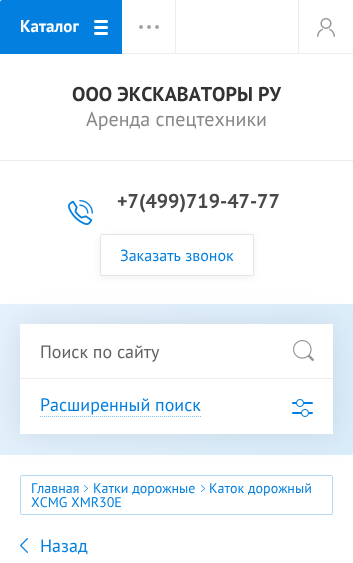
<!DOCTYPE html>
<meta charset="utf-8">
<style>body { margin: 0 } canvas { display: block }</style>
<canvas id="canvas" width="353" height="563"></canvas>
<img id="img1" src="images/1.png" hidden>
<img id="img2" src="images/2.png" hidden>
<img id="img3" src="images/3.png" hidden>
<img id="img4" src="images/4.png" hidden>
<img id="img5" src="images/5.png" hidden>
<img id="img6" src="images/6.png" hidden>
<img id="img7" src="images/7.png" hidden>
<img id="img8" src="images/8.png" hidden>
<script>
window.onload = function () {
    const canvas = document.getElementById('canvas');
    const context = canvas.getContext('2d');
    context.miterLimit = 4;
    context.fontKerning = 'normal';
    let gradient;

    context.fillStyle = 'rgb(255, 255, 255)';
    context.fillRect(0, 0, 353, 563);
    context.fillStyle = 'rgb(3, 127, 223)';
    context.beginPath();
    context.roundRect(0, 0, 122, 54, [2, 0, 0, 0]);
    context.fill();
    context.drawImage(document.getElementById('img1'), 94, 20, 14, 15);
    context.drawImage(document.getElementById('img2'), 139, 25, 20, 4);
    context.fillStyle = 'rgb(237, 237, 237)';
    context.fillRect(122, 53, 231, 1);
    context.fillRect(175, 0, 1, 54);
    context.fillRect(298, 0, 1, 54);
    context.drawImage(document.getElementById('img3'), 317, 18, 18, 19);
    context.fillRect(0, 160, 353, 1);
    context.save();
    context.beginPath();
    context.moveTo(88, 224);
    context.lineTo(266, 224);
    context.lineTo(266, 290);
    context.lineTo(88, 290);
    context.closePath();
    context.moveTo(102, 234);
    context.lineTo(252, 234);
    context.bezierCurveTo(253, 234, 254, 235, 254, 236);
    context.lineTo(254, 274);
    context.bezierCurveTo(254, 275, 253, 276, 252, 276);
    context.lineTo(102, 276);
    context.bezierCurveTo(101, 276, 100, 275, 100, 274);
    context.lineTo(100, 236);
    context.bezierCurveTo(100, 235, 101, 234, 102, 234);
    context.closePath();
    context.clip('evenodd');
    context.fillStyle = 'rgba(0, 0, 0, 0.06)';
    context.filter = 'blur(3.5px)';
    context.beginPath();
    context.roundRect(100, 236, 154, 42, 2);
    context.fill();
    context.filter = 'none';
    context.restore();
    context.drawImage(document.getElementById('img4'), 68, 200, 25, 25);
    context.beginPath();
    context.roundRect(100.5, 234.5, 153, 41, 1.5);
    context.strokeStyle = 'rgb(229, 229, 229)';
    context.stroke();
    gradient = context.createLinearGradient(50, 254, 303, 506);
    gradient.addColorStop(0, 'rgb(230, 242, 252)');
    gradient.addColorStop(1, 'rgb(217, 236, 250)');
    context.fillStyle = gradient;
    context.fillRect(0, 304, 353, 151);
    context.beginPath();
    context.roundRect(20.5, 475.5, 312, 39, 1.5);
    context.strokeStyle = 'rgb(179, 217, 245)';
    context.stroke();
    context.fillStyle = 'rgba(79, 88, 98, 0.14)';
    context.filter = 'blur(15px)';
    context.beginPath();
    context.rect(20, 324, 313, 110);
    context.fill();
    context.filter = 'none';
    context.fillStyle = 'rgb(255, 255, 255)';
    context.fillRect(20, 324, 313, 110);
    context.fillStyle = 'rgb(237, 237, 237)';
    context.fillRect(20, 378, 313, 1);
    context.drawImage(document.getElementById('img5'), 293, 340, 21, 21);
    context.beginPath();
    context.moveTo(40, 416.5);
    context.lineTo(201, 416.5);
    context.strokeStyle = 'rgb(129, 191, 239)';
    context.setLineDash([1, 1]);
    context.stroke();
    context.drawImage(document.getElementById('img6'), 292, 399, 21, 18);
    context.drawImage(document.getElementById('img7'), 84, 485, 4, 7);
    context.drawImage(document.getElementById('img7'), 201, 485, 4, 7);
    context.drawImage(document.getElementById('img8'), 20, 538, 8, 15);
    context.font = 'bold 17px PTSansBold';
    context.fillStyle = 'rgb(255, 255, 255)';
    context.fillText('Каталог', 20, 32);
    context.font = 'bold 20px PTSansBold';
    context.fillStyle = 'rgb(50, 50, 50)';
    context.fillText('ООО ЭКСКАВАТОРЫ РУ', 72, 101);
    context.font = '20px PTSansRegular';
    context.fillStyle = 'rgb(137, 136, 136)';
    context.fillText('Аренда спецтехники', 86, 126);
    context.font = 'bold 20px PTSansBold';
    context.fillStyle = 'rgb(73, 73, 73)';
    context.fillText('+7(499)719-47-77', 117, 208);
    context.font = '16px PTSansRegular';
    context.fillStyle = 'rgb(3, 127, 223)';
    context.fillText('Заказать звонок', 120, 261);
    context.font = '18px PTSansRegular';
    context.fillStyle = 'rgb(98, 96, 96)';
    context.fillText('Поиск по сайту', 40, 358);
    context.fillStyle = 'rgb(3, 127, 223)';
    context.fillText('Расширенный поиск', 40, 411);
    context.font = '14px PTSansRegular';
    context.fillText('Главная', 31, 493);
    context.fillText('Катки дорожные', 93, 493);
    context.fillText('Каток дорожный', 209, 493);
    context.fillText('XCMG XMR30E', 31, 507);
    context.font = '18px PTSansRegular';
    context.fillText('Назад', 40, 552);
};
</script>
